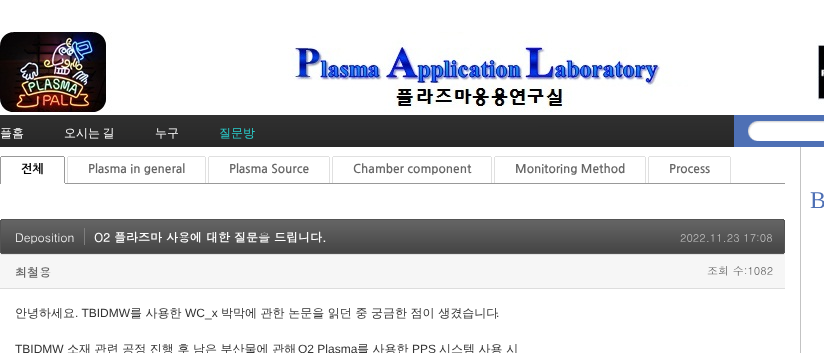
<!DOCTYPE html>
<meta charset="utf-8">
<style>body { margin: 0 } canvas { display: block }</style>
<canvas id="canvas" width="824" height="353"></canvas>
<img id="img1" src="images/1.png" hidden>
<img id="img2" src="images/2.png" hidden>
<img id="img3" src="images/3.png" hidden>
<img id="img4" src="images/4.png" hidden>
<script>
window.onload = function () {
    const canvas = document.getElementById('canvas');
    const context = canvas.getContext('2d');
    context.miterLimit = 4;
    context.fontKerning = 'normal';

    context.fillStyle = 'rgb(255, 255, 255)';
    context.fillRect(0, 0, 824, 353);
    context.drawImage(document.getElementById('img1'), 0, 115, 824, 32);
    context.drawImage(document.getElementById('img2'), 0, 32, 824, 80);
    context.fillStyle = 'rgb(195, 195, 195)';
    context.fillRect(800, 147, 1, 206);
    context.fillStyle = 'rgb(153, 153, 153)';
    context.fillRect(65, 183, 720, 1);
    context.fillRect(64, 157, 1, 27);
    context.fillStyle = 'rgb(255, 255, 255)';
    context.fillRect(64, 183, 1, 1);
    context.fillStyle = 'rgb(153, 153, 153)';
    context.fillRect(0, 157, 1, 27);
    context.fillRect(1, 156, 63, 1);
    context.fillStyle = 'rgb(224, 224, 224)';
    context.fillRect(205, 157, 1, 26);
    context.fillRect(67, 157, 1, 26);
    context.fillRect(68, 156, 137, 1);
    context.fillRect(329, 157, 1, 26);
    context.fillRect(208, 157, 1, 26);
    context.fillRect(209, 156, 120, 1);
    context.fillRect(491, 157, 1, 26);
    context.fillRect(332, 157, 1, 26);
    context.fillRect(333, 156, 158, 1);
    context.fillRect(645, 157, 1, 26);
    context.fillRect(494, 157, 1, 26);
    context.fillRect(495, 156, 150, 1);
    context.fillRect(730, 157, 1, 26);
    context.fillRect(648, 157, 1, 26);
    context.fillRect(649, 156, 81, 1);
    context.drawImage(document.getElementById('img3'), 0, 219, 783, 36);
    context.drawImage(document.getElementById('img4'), 783, 219, 2, 36);
    context.fillStyle = 'rgb(126, 126, 126)';
    context.fillRect(84, 228, 1, 17);
    context.fillStyle = 'rgb(246, 246, 246)';
    context.fillRect(0, 255, 785, 33);
    context.fillStyle = 'rgb(221, 221, 221)';
    context.fillRect(0, 288, 785, 1);
    context.font = '500 12px WenQuanYi Zen Hei';
    context.fillStyle = 'rgb(255, 255, 255)';
    context.fillText('플홈', 0, 137);
    context.wordSpacing = '-1px';
    context.fillText('오시는 길', 64, 137);
    context.wordSpacing = '0px';
    context.fillText('누구', 155, 137);
    context.fillStyle = 'rgb(42, 207, 205)';
    context.fillText('질문방', 219, 137);
    context.font = 'bold 12px NanumGothic';
    context.fillStyle = 'rgb(0, 0, 0)';
    context.fillText('전체', 21, 173);
    context.fillStyle = 'rgb(102, 102, 102)';
    context.fillText('Plasma in general', 88, 173);
    context.fillText('Plasma Source', 229, 173);
    context.fillText('Chamber component', 353, 173);
    context.fillText('Monitoring Method', 515, 173);
    context.fillText('Process', 669, 173);
    context.font = '12px Dotum';
    context.fillStyle = 'rgb(255, 255, 255)';
    context.fillText('Deposition', 15, 242);
    context.font = 'bold 12px Dotum';
    context.fillText('O2 플라즈마 사용에 대한 질문을 드립니다.', 94, 242);
    context.font = '11px Dotum';
    context.fillStyle = 'rgb(191, 191, 191)';
    context.fillText('2022.11.23 17:08', 680, 242);
    context.font = 'bold 12px Dotum';
    context.fillStyle = 'rgb(102, 102, 102)';
    context.fillText('최철용', 15, 277);
    context.font = '11px Dotum';
    context.fillText('조회 수:1082', 707, 275);
    context.font = '500 12px WenQuanYi Zen Hei';
    context.fillStyle = 'rgb(51, 51, 51)';
    context.fillText('안녕하세요', 15, 317);
    context.font = '12px Liberation Sans';
    context.fillText('. TBIDMW', 75, 317);
    context.font = '500 12px WenQuanYi Zen Hei';
    context.fillText('를 사용한', 130, 317);
    context.font = '12px Liberation Sans';
    context.fillText('WC_x', 185, 317);
    context.font = '500 12px WenQuanYi Zen Hei';
    context.fillText('박막에 관한 논문을 읽던 중 궁금한 점이 생겼습니다', 221, 317);
    context.font = '12px Liberation Sans';
    context.fillText('.', 496, 317);
    context.fillText('TBIDMW', 15, 353);
    context.font = '500 12px WenQuanYi Zen Hei';
    context.fillText('소재 관련 공정 진행 후 남은 부산물에 관해', 67, 353);
    context.font = '12px Liberation Sans';
    context.fillText('O2 Plasma', 298, 353);
    context.font = '500 12px WenQuanYi Zen Hei';
    context.fillText('를 사용한', 357, 353);
    context.font = '12px Liberation Sans';
    context.fillText('PPS', 412, 353);
    context.font = '500 12px WenQuanYi Zen Hei';
    context.fillText('시스템 사용 시', 439, 353);
    context.font = '24px Liberation Serif';
    context.fillStyle = 'rgb(78, 112, 181)';
    context.fillText('B', 810, 208);
};
</script>
